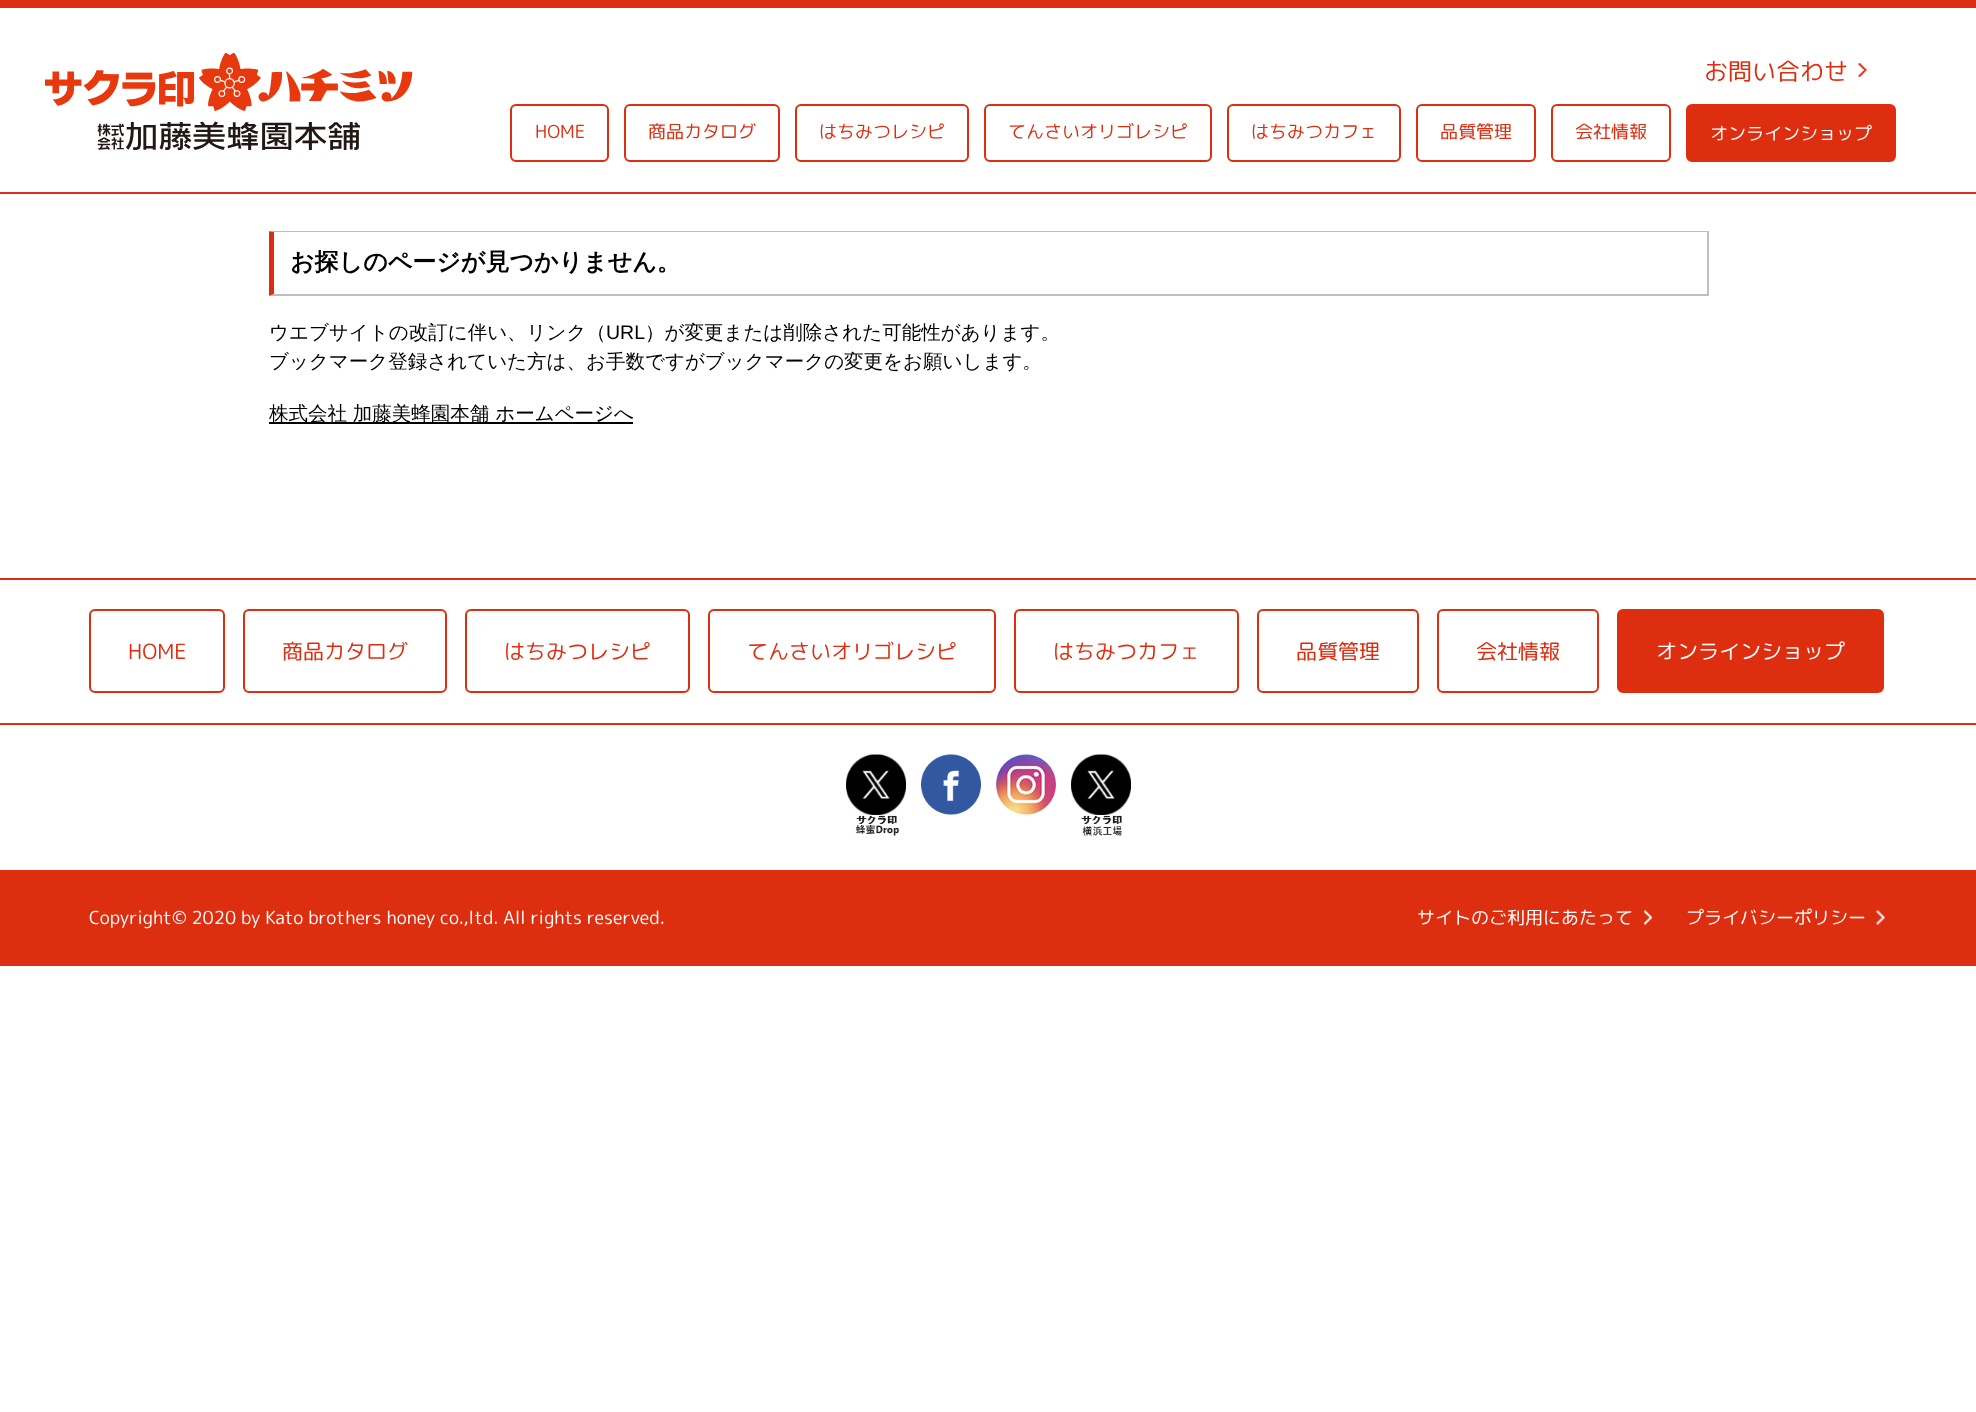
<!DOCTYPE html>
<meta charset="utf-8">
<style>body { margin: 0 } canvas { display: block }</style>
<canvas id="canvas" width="1976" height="1412"></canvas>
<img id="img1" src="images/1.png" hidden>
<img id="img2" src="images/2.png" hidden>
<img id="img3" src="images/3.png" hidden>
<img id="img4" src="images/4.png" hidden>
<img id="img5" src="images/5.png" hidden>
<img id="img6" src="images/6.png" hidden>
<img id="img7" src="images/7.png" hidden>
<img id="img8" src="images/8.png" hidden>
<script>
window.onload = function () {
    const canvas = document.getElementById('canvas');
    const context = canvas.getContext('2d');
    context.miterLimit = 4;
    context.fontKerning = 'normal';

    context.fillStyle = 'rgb(255, 255, 255)';
    context.fillRect(0, 0, 1976, 1412);
    context.fillStyle = 'rgb(222, 45, 17)';
    context.fillRect(0, 0, 1976, 8);
    context.fillRect(0, 192, 1976, 2);
    context.drawImage(document.getElementById('img1'), 45, 53, 368, 97);
    context.drawImage(document.getElementById('img2'), 1858, 63, 9, 14);
    context.beginPath();
    context.roundRect(511, 105, 97, 56, 5);
    context.strokeStyle = 'rgb(222, 46, 16)';
    context.lineWidth = 2;
    context.stroke();
    context.beginPath();
    context.roundRect(625, 105, 154, 56, 5);
    context.stroke();
    context.beginPath();
    context.roundRect(796, 105, 172, 56, 5);
    context.stroke();
    context.beginPath();
    context.roundRect(985, 105, 226, 56, 5);
    context.stroke();
    context.beginPath();
    context.roundRect(1228, 105, 172, 56, 5);
    context.stroke();
    context.beginPath();
    context.roundRect(1417, 105, 118, 56, 5);
    context.stroke();
    context.beginPath();
    context.roundRect(1552, 105, 118, 56, 5);
    context.stroke();
    context.fillStyle = 'rgb(222, 46, 16)';
    context.beginPath();
    context.roundRect(1687, 105, 208, 56, 5);
    context.fill();
    context.stroke();
    context.fillStyle = 'rgb(191, 191, 191)';
    context.beginPath();
    context.moveTo(268, 231);
    context.lineTo(1708, 231);
    context.lineTo(1707, 232);
    context.lineTo(274, 232);
    context.closePath();
    context.fill();
    context.fillRect(1707, 231, 2, 65);
    context.beginPath();
    context.moveTo(1708, 296);
    context.lineTo(268, 296);
    context.lineTo(274, 294);
    context.lineTo(1707, 294);
    context.closePath();
    context.fill();
    context.save();
    context.beginPath();
    context.rect(269, 194, 1440, 234);
    context.clip();
    context.fillStyle = 'rgb(222, 45, 17)';
    context.beginPath();
    context.moveTo(268, 296);
    context.lineTo(268, 231);
    context.lineTo(274, 232);
    context.lineTo(274, 294);
    context.closePath();
    context.fill();
    context.restore();
    context.fillStyle = 'rgb(0, 0, 0)';
    context.fillRect(269, 422, 364, 2);
    context.fillStyle = 'rgb(222, 46, 16)';
    context.fillRect(0, 578, 1976, 2);
    context.beginPath();
    context.roundRect(90, 610, 134, 82, 5);
    context.stroke();
    context.beginPath();
    context.roundRect(244, 610, 202, 82, 5);
    context.stroke();
    context.beginPath();
    context.roundRect(466, 610, 223, 82, 5);
    context.stroke();
    context.beginPath();
    context.roundRect(709, 610, 286, 82, 5);
    context.stroke();
    context.beginPath();
    context.roundRect(1015, 610, 223, 82, 5);
    context.stroke();
    context.beginPath();
    context.roundRect(1258, 610, 160, 82, 5);
    context.stroke();
    context.beginPath();
    context.roundRect(1438, 610, 160, 82, 5);
    context.stroke();
    context.beginPath();
    context.roundRect(1618, 610, 265, 82, 5);
    context.fill();
    context.stroke();
    context.fillStyle = 'rgb(222, 47, 16)';
    context.fillRect(0, 723, 1976, 2);
    context.drawImage(document.getElementById('img3'), 846, 754, 60, 82);
    context.drawImage(document.getElementById('img4'), 921, 754, 60, 61);
    context.drawImage(document.getElementById('img5'), 996, 754, 60, 61);
    context.drawImage(document.getElementById('img6'), 1071, 754, 60, 82);
    context.fillStyle = 'rgb(222, 46, 16)';
    context.fillRect(0, 870, 1976, 96);
    context.drawImage(document.getElementById('img7'), 1644, 910, 8, 15);
    context.drawImage(document.getElementById('img8'), 1876, 910, 9, 15);
    context.font = '24px "Rounded Mplus 1c"';
    context.fillText('お問い合わせ', 1704, 80);
    context.font = '18px "Rounded Mplus 1c"';
    context.fillText('HOME', 535, 138);
    context.fillText('商品カタログ', 648, 138);
    context.fillText('はちみつレシピ', 819, 138);
    context.fillText('てんさいオリゴレシピ', 1008, 138);
    context.fillText('はちみつカフェ', 1251, 138);
    context.fillText('品質管理', 1440, 138);
    context.fillText('会社情報', 1575, 138);
    context.fillStyle = 'rgb(255, 255, 255)';
    context.fillText('オンラインショップ', 1710, 140);
    context.font = 'bold 24px WenQuanYi Zen Hei';
    context.fillStyle = 'rgb(0, 0, 0)';
    context.fillText('お探しのページが見つかりません。', 290, 270);
    context.font = '500 19.5px WenQuanYi Zen Hei';
    context.fillText('ウエブサイトの改訂に伴い、リンク（', 269, 339);
    context.font = '19.5px Liberation Sans';
    context.fillText('URL', 606, 339);
    context.font = '500 19.5px WenQuanYi Zen Hei';
    context.fillText('）が変更または削除された可能性があります。', 645, 339);
    context.fillText('ブックマーク登録されていた方は、お手数ですがブックマークの変更をお願いします。', 269, 368);
    context.fillText('株式会社 加藤美蜂園本舗 ホームページへ', 269, 420);
    context.font = '21px "Rounded Mplus 1c"';
    context.fillStyle = 'rgb(222, 46, 16)';
    context.fillText('HOME', 128, 659);
    context.fillText('商品カタログ', 282, 659);
    context.fillText('はちみつレシピ', 504, 659);
    context.fillText('てんさいオリゴレシピ', 747, 659);
    context.fillText('はちみつカフェ', 1053, 659);
    context.fillText('品質管理', 1296, 659);
    context.fillText('会社情報', 1476, 659);
    context.fillStyle = 'rgb(255, 255, 255)';
    context.fillText('オンラインショップ', 1656, 659);
    context.font = '18px "Rounded Mplus 1c"';
    context.fillText('Copyright© 2020 by Kato brothers honey co.,ltd. All rights reserved.', 89, 924);
    context.fillText('サイトのご利用にあたって', 1417, 924);
    context.fillText('プライバシーポリシー', 1686, 924);
};
</script>
